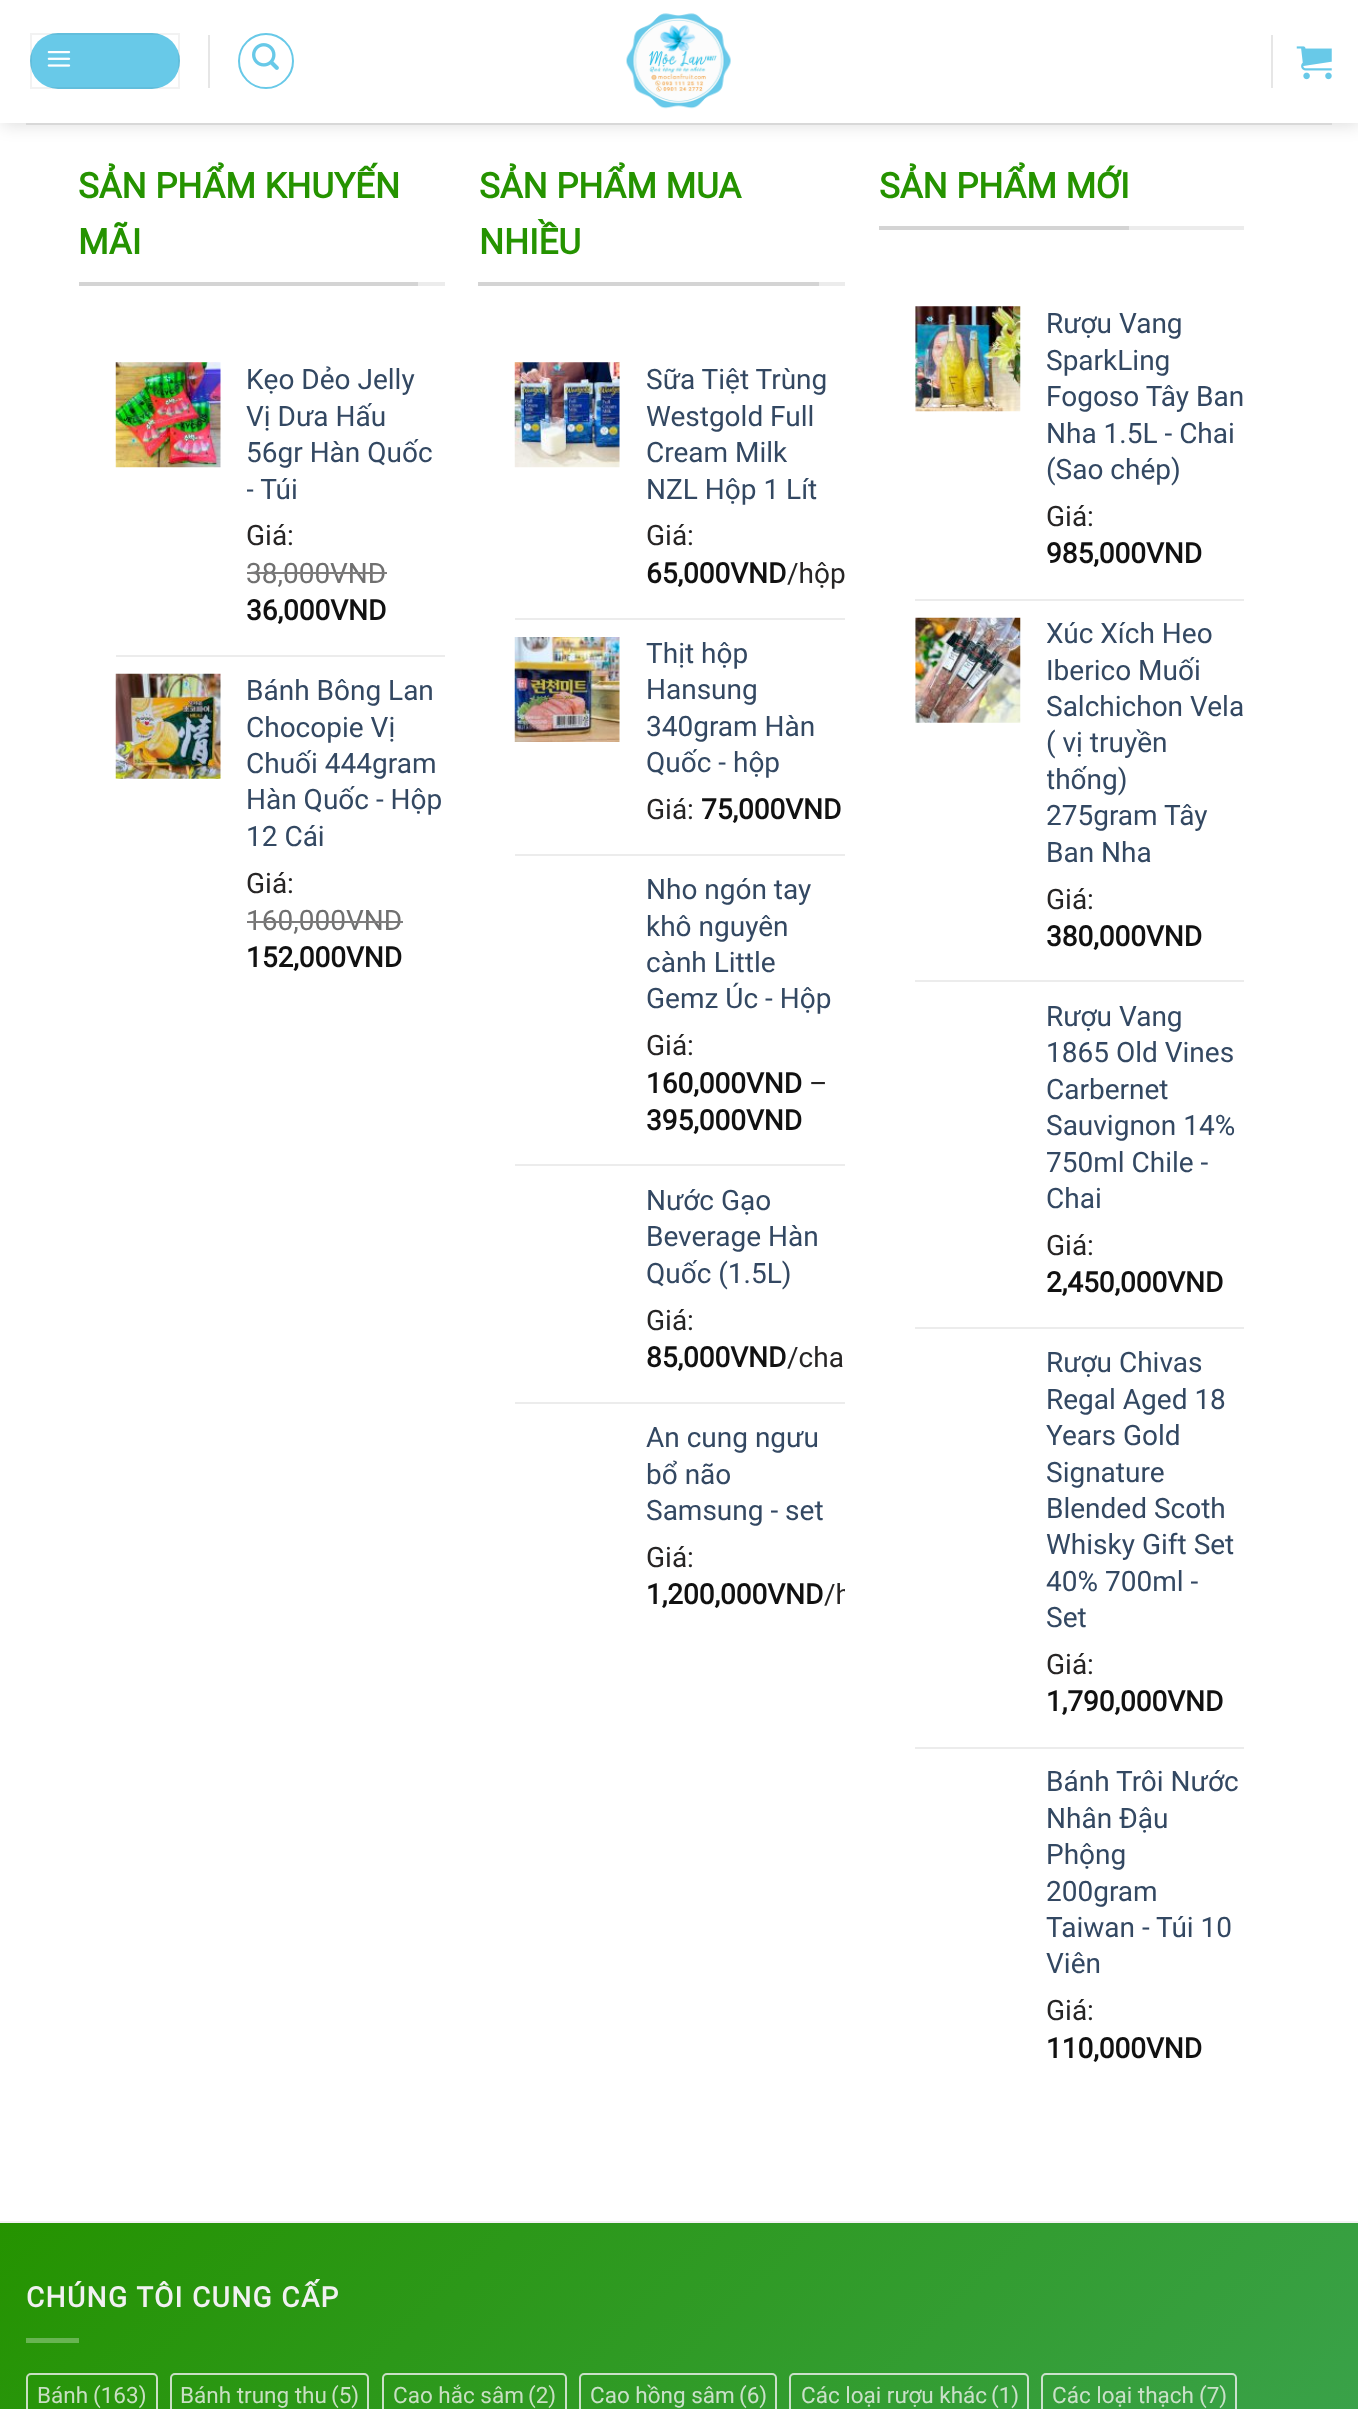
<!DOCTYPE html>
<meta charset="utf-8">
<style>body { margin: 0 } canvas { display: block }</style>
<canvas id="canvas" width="1358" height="2409"></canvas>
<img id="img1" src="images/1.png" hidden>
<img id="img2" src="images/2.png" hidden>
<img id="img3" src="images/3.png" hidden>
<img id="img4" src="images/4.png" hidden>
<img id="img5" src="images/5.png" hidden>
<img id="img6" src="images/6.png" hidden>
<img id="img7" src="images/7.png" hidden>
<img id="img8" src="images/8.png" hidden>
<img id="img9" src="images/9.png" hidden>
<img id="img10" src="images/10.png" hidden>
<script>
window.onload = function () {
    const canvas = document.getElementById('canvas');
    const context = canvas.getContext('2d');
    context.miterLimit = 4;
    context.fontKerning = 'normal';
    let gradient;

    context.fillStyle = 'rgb(255, 255, 255)';
    context.fillRect(0, 0, 1358, 2409);
    context.fillStyle = 'rgba(0, 0, 0, 0.15)';
    context.filter = 'blur(9px)';
    context.beginPath();
    context.rect(2, 2, 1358, 122);
    context.fill();
    context.filter = 'none';
    context.fillStyle = 'rgb(255, 255, 255)';
    context.fillRect(0, 0, 1358, 123);
    context.fillStyle = 'rgb(104, 201, 232)';
    context.beginPath();
    context.roundRect(30, 33, 150, 56, 28);
    context.fill();
    context.strokeStyle = 'rgba(0, 0, 0, 0.05)';
    context.lineWidth = 2;
    context.strokeRect(31, 34, 148, 54);
    context.drawImage(document.getElementById('img1'), 47, 51, 24, 16);
    context.fillStyle = 'rgb(230, 230, 230)';
    context.fillRect(208, 35, 2, 53);
    context.beginPath();
    context.arc(266, 61, 27, 0, 2 * Math.PI);
    context.strokeStyle = 'rgb(104, 201, 232)';
    context.stroke();
    context.drawImage(document.getElementById('img2'), 252, 43, 27, 27);
    context.drawImage(document.getElementById('img3'), 626, 13, 105, 96);
    context.fillRect(1271, 35, 2, 53);
    context.drawImage(document.getElementById('img4'), 1296, 46, 36, 34);
    context.fillStyle = 'rgb(216, 216, 216)';
    context.fillRect(26, 123, 1306, 2);
    context.fillStyle = 'rgb(236, 236, 236)';
    context.fillRect(418, 282, 27, 4);
    context.fillStyle = 'rgb(212, 212, 212)';
    context.fillRect(79, 282, 339, 4);
    context.drawImage(document.getElementById('img5'), 115, 362, 106, 106);
    context.fillStyle = 'rgb(236, 236, 236)';
    context.fillRect(116, 655, 329, 2);
    context.drawImage(document.getElementById('img6'), 115, 673, 106, 106);
    context.fillRect(819, 282, 26, 4);
    context.fillStyle = 'rgb(212, 212, 212)';
    context.fillRect(478, 282, 341, 4);
    context.drawImage(document.getElementById('img7'), 514, 362, 106, 106);
    context.fillStyle = 'rgb(236, 236, 236)';
    context.fillRect(515, 618, 330, 2);
    context.drawImage(document.getElementById('img8'), 514, 637, 106, 105);
    context.fillRect(515, 854, 330, 2);
    context.fillRect(515, 1164, 330, 2);
    context.fillRect(515, 1402, 330, 2);
    context.fillRect(1129, 226, 115, 4);
    context.fillStyle = 'rgb(212, 212, 212)';
    context.fillRect(879, 226, 250, 4);
    context.drawImage(document.getElementById('img9'), 915, 306, 106, 106);
    context.fillStyle = 'rgb(236, 236, 236)';
    context.fillRect(915, 599, 329, 2);
    context.drawImage(document.getElementById('img10'), 915, 617, 106, 106);
    context.fillRect(915, 980, 329, 2);
    context.fillRect(915, 1327, 329, 2);
    context.fillRect(915, 1747, 329, 2);
    gradient = context.createLinearGradient(-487, 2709, 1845, 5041);
    gradient.addColorStop(0, 'rgb(37, 147, 0)');
    gradient.addColorStop(1, 'rgb(99, 191, 220)');
    context.fillStyle = gradient;
    context.fillRect(0, 2223, 1358, 186);
    context.fillStyle = 'rgb(242, 242, 242)';
    context.fillRect(0, 2221, 1358, 2);
    context.fillStyle = 'rgb(104, 181, 82)';
    context.fillRect(26, 2338, 53, 5);
    context.beginPath();
    context.roundRect(27, 2374, 130, 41, 4);
    context.strokeStyle = 'rgba(241, 241, 241, 0.8)';
    context.stroke();
    context.beginPath();
    context.roundRect(171, 2374, 197, 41, 4);
    context.stroke();
    context.beginPath();
    context.roundRect(383, 2374, 183, 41, 4);
    context.stroke();
    context.beginPath();
    context.roundRect(580, 2374, 196, 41, 4);
    context.stroke();
    context.beginPath();
    context.roundRect(790, 2374, 238, 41, 4);
    context.stroke();
    context.beginPath();
    context.roundRect(1042, 2374, 194, 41, 4);
    context.stroke();
    context.font = 'bold 35px Roboto';
    context.fillStyle = 'rgb(37, 147, 0)';
    context.fillText('SẢN PHẨM KHUYẾN', 78, 198);
    context.fillText('MÃI', 78, 254);
    context.font = '28px Roboto';
    context.fillStyle = 'rgb(51, 72, 98)';
    context.fillText('Kẹo Dẻo Jelly', 246, 389);
    context.fillText('Vị Dưa Hấu', 246, 426);
    context.fillText('56gr Hàn Quốc', 246, 462);
    context.save();
    context.beginPath();
    context.rect(247, 362, 198, 147);
    context.clip();
    context.fillText('- Túi', 246, 499);
    context.restore();
    context.fillStyle = 'rgb(39, 37, 37)';
    context.fillText('Giá:', 246, 545);
    context.fillStyle = 'rgb(112, 112, 112)';
    context.fillText('38,000', 246, 583);
    context.fillStyle = 'rgb(125, 124, 124)';
    context.fillRect(247, 572, 84, 2);
    context.fillStyle = 'rgb(112, 112, 112)';
    context.fillText('VND', 330, 583);
    context.fillStyle = 'rgb(125, 124, 124)';
    context.fillRect(331, 572, 56, 2);
    context.font = 'bold 28px Roboto';
    context.fillStyle = 'rgb(17, 17, 17)';
    context.fillText('36,000VND', 246, 620);
    context.font = '28px Roboto';
    context.fillStyle = 'rgb(51, 72, 98)';
    context.fillText('Bánh Bông Lan', 246, 700);
    context.fillText('Chocopie Vị', 246, 737);
    context.fillText('Chuối 444gram', 246, 773);
    context.fillText('Hàn Quốc - Hộp', 246, 809);
    context.fillText('12 Cái', 246, 846);
    context.fillStyle = 'rgb(39, 37, 37)';
    context.fillText('Giá:', 246, 893);
    context.fillStyle = 'rgb(112, 112, 112)';
    context.fillText('160,000', 246, 930);
    context.fillStyle = 'rgb(125, 124, 124)';
    context.fillRect(247, 921, 100, 2);
    context.fillStyle = 'rgb(112, 112, 112)';
    context.fillText('VND', 346, 930);
    context.fillStyle = 'rgb(125, 124, 124)';
    context.fillRect(347, 921, 56, 2);
    context.font = 'bold 28px Roboto';
    context.fillStyle = 'rgb(17, 17, 17)';
    context.fillText('152,000VND', 246, 967);
    context.font = 'bold 35px Roboto';
    context.fillStyle = 'rgb(37, 147, 0)';
    context.fillText('SẢN PHẨM MUA', 479, 198);
    context.fillText('NHIỀU', 479, 254);
    context.font = '28px Roboto';
    context.fillStyle = 'rgb(51, 72, 98)';
    context.fillText('Sữa Tiệt Trùng', 646, 389);
    context.fillText('Westgold Full', 646, 426);
    context.fillText('Cream Milk', 646, 462);
    context.fillText('NZL Hộp 1 Lít', 646, 499);
    context.fillStyle = 'rgb(39, 37, 37)';
    context.fillText('Giá:', 646, 545);
    context.font = 'bold 28px Roboto';
    context.fillStyle = 'rgb(17, 17, 17)';
    context.fillText('65,000VND', 646, 583);
    context.font = '28px Roboto';
    context.fillStyle = 'rgb(39, 37, 37)';
    context.fillText('/hộp', 787, 583);
    context.fillStyle = 'rgb(51, 72, 98)';
    context.fillText('Thịt hộp', 646, 663);
    context.fillText('Hansung', 646, 699);
    context.fillText('340gram Hàn', 646, 736);
    context.fillText('Quốc - hộp', 646, 772);
    context.fillStyle = 'rgb(39, 37, 37)';
    context.fillText('Giá:', 646, 819);
    context.font = 'bold 28px Roboto';
    context.fillStyle = 'rgb(17, 17, 17)';
    context.fillText('75,000VND', 701, 819);
    context.font = '28px Roboto';
    context.fillStyle = 'rgb(51, 72, 98)';
    context.fillText('Nho ngón tay', 646, 899);
    context.fillText('khô nguyên', 646, 936);
    context.fillText('cành Little', 646, 972);
    context.fillText('Gemz Úc - Hộp', 646, 1008);
    context.fillStyle = 'rgb(39, 37, 37)';
    context.fillText('Giá:', 646, 1055);
    context.font = 'bold 28px Roboto';
    context.fillStyle = 'rgb(17, 17, 17)';
    context.fillText('160,000VND', 646, 1093);
    context.font = '28px Roboto';
    context.fillStyle = 'rgb(39, 37, 37)';
    context.fillText('–', 809, 1093);
    context.font = 'bold 28px Roboto';
    context.fillStyle = 'rgb(17, 17, 17)';
    context.fillText('395,000VND', 646, 1130);
    context.font = '28px Roboto';
    context.fillStyle = 'rgb(51, 72, 98)';
    context.fillText('Nước Gạo', 646, 1210);
    context.fillText('Beverage Hàn', 646, 1246);
    context.fillText('Quốc (1.5L)', 646, 1283);
    context.fillStyle = 'rgb(39, 37, 37)';
    context.fillText('Giá:', 646, 1330);
    context.font = 'bold 28px Roboto';
    context.fillStyle = 'rgb(17, 17, 17)';
    context.fillText('85,000VND', 646, 1367);
    context.font = '28px Roboto';
    context.fillStyle = 'rgb(39, 37, 37)';
    context.fillText('/cha', 787, 1367);
    context.fillStyle = 'rgb(51, 72, 98)';
    context.fillText('An cung ngưu', 646, 1447);
    context.fillText('bổ não', 646, 1484);
    context.fillText('Samsung - set', 646, 1520);
    context.fillStyle = 'rgb(39, 37, 37)';
    context.fillText('Giá:', 646, 1567);
    context.font = 'bold 28px Roboto';
    context.fillStyle = 'rgb(17, 17, 17)';
    context.fillText('1,200,000VND', 646, 1604);
    context.save();
    context.beginPath();
    context.rect(515, 1404, 330, 218);
    context.clip();
    context.font = '28px Roboto';
    context.fillStyle = 'rgb(39, 37, 37)';
    context.fillText('/h', 824, 1604);
    context.restore();
    context.font = 'bold 35px Roboto';
    context.fillStyle = 'rgb(37, 147, 0)';
    context.fillText('SẢN PHẨM MỚI', 879, 198);
    context.font = '28px Roboto';
    context.fillStyle = 'rgb(51, 72, 98)';
    context.fillText('Rượu Vang', 1046, 333);
    context.fillText('SparkLing', 1046, 370);
    context.fillText('Fogoso Tây Ban', 1046, 406);
    context.fillText('Nha 1.5L - Chai', 1046, 443);
    context.fillText('(Sao chép)', 1046, 479);
    context.fillStyle = 'rgb(39, 37, 37)';
    context.fillText('Giá:', 1046, 526);
    context.font = 'bold 28px Roboto';
    context.fillStyle = 'rgb(17, 17, 17)';
    context.fillText('985,000VND', 1046, 563);
    context.font = '28px Roboto';
    context.fillStyle = 'rgb(51, 72, 98)';
    context.fillText('Xúc Xích Heo', 1046, 643);
    context.fillText('Iberico Muối', 1046, 680);
    context.fillText('Salchichon Vela', 1046, 716);
    context.fillText('( vị truyền', 1046, 752);
    context.save();
    context.beginPath();
    context.rect(1047, 618, 197, 254);
    context.clip();
    context.fillText('thống)', 1046, 789);
    context.restore();
    context.fillText('275gram Tây', 1046, 825);
    context.fillText('Ban Nha', 1046, 862);
    context.fillStyle = 'rgb(39, 37, 37)';
    context.fillText('Giá:', 1046, 909);
    context.font = 'bold 28px Roboto';
    context.fillStyle = 'rgb(17, 17, 17)';
    context.fillText('380,000VND', 1046, 946);
    context.font = '28px Roboto';
    context.fillStyle = 'rgb(51, 72, 98)';
    context.fillText('Rượu Vang', 1046, 1026);
    context.fillText('1865 Old Vines', 1046, 1062);
    context.fillText('Carbernet', 1046, 1099);
    context.fillText('Sauvignon 14%', 1046, 1135);
    context.fillText('750ml Chile -', 1046, 1172);
    context.fillText('Chai', 1046, 1208);
    context.fillStyle = 'rgb(39, 37, 37)';
    context.fillText('Giá:', 1046, 1255);
    context.font = 'bold 28px Roboto';
    context.fillStyle = 'rgb(17, 17, 17)';
    context.fillText('2,450,000VND', 1046, 1292);
    context.font = '28px Roboto';
    context.fillStyle = 'rgb(51, 72, 98)';
    context.fillText('Rượu Chivas', 1046, 1372);
    context.fillText('Regal Aged 18', 1046, 1409);
    context.fillText('Years Gold', 1046, 1445);
    context.fillText('Signature', 1046, 1482);
    context.fillText('Blended Scoth', 1046, 1518);
    context.fillText('Whisky Gift Set', 1046, 1554);
    context.fillText('40% 700ml -', 1046, 1591);
    context.fillText('Set', 1046, 1627);
    context.fillStyle = 'rgb(39, 37, 37)';
    context.fillText('Giá:', 1046, 1674);
    context.font = 'bold 28px Roboto';
    context.fillStyle = 'rgb(17, 17, 17)';
    context.fillText('1,790,000VND', 1046, 1711);
    context.font = '28px Roboto';
    context.fillStyle = 'rgb(51, 72, 98)';
    context.fillText('Bánh Trôi Nước', 1046, 1791);
    context.fillText('Nhân Đậu', 1046, 1828);
    context.fillText('Phộng', 1046, 1864);
    context.fillText('200gram', 1046, 1901);
    context.fillText('Taiwan - Túi 10', 1046, 1937);
    context.fillText('Viên', 1046, 1973);
    context.fillStyle = 'rgb(39, 37, 37)';
    context.fillText('Giá:', 1046, 2020);
    context.font = 'bold 28px Roboto';
    context.fillStyle = 'rgb(17, 17, 17)';
    context.fillText('110,000VND', 1046, 2058);
    context.letterSpacing = '1.4px';
    context.fillStyle = 'rgb(241, 241, 241)';
    context.fillText('CHÚNG TÔI CUNG CẤP', 26, 2307);
    context.letterSpacing = '0px';
    context.font = '22.5px Roboto';
    context.fillStyle = 'rgb(201, 223, 195)';
    context.fillText('Bánh', 37, 2403);
    context.fillText('(163)', 93, 2403);
    context.fillText('Bánh trung thu', 180, 2403);
    context.fillText('(5)', 331, 2403);
    context.fillText('Cao hắc sâm', 393, 2403);
    context.fillText('(2)', 528, 2403);
    context.fillStyle = 'rgb(202, 224, 201)';
    context.fillText('Cao hồng sâm', 590, 2403);
    context.fillText('(6)', 739, 2403);
    context.fillText('Các loại rượu khác', 801, 2403);
    context.fillText('(1)', 991, 2403);
    context.fillText('Các loại thạch', 1052, 2403);
    context.fillText('(7)', 1199, 2403);
};
</script>
